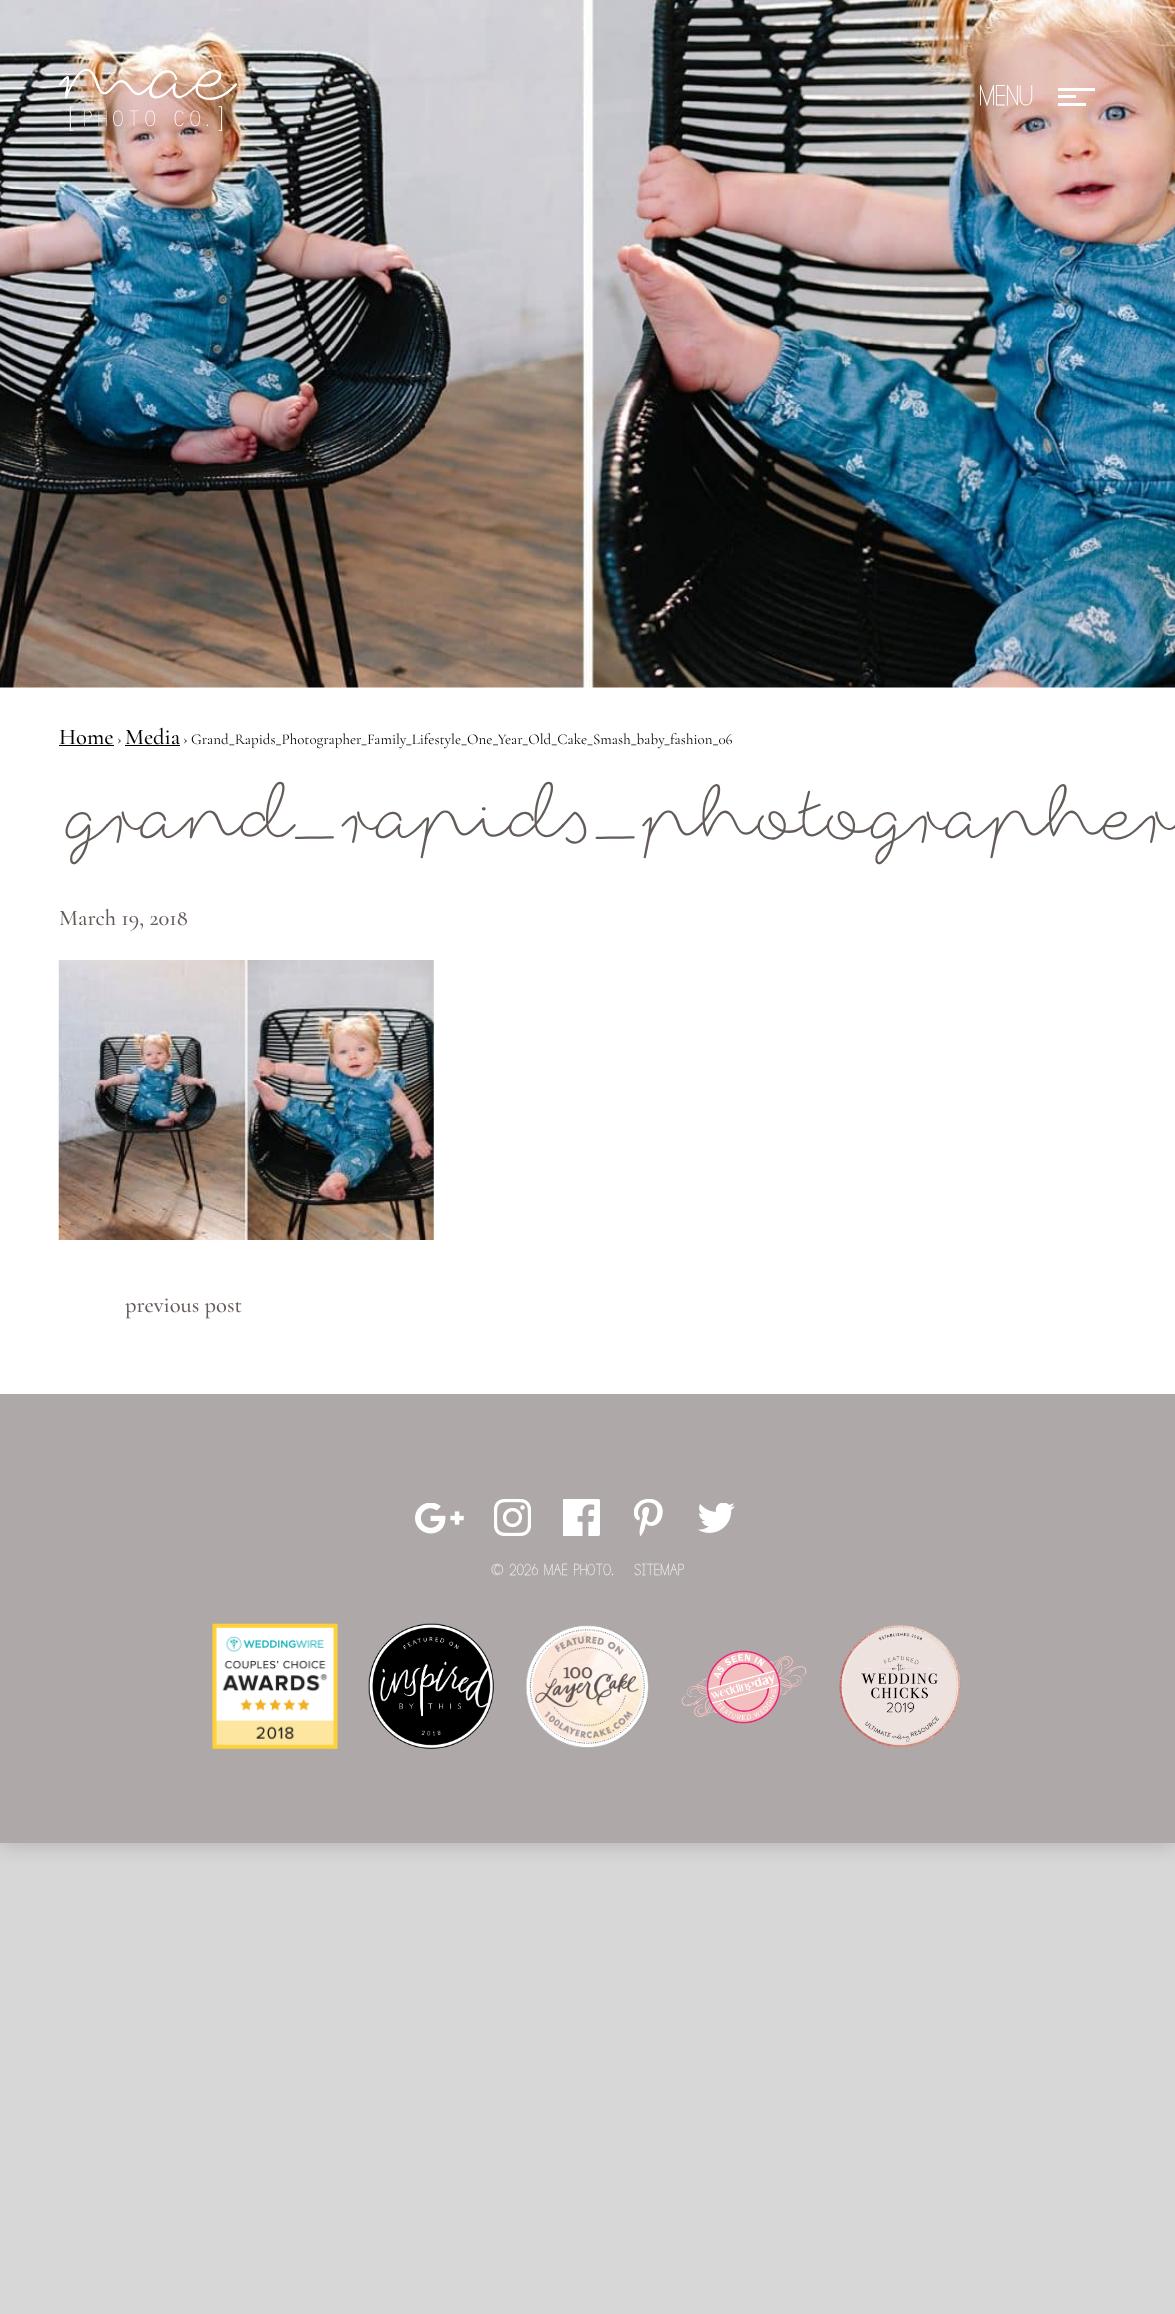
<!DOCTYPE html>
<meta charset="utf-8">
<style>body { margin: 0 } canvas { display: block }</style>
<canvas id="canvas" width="1175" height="2314"></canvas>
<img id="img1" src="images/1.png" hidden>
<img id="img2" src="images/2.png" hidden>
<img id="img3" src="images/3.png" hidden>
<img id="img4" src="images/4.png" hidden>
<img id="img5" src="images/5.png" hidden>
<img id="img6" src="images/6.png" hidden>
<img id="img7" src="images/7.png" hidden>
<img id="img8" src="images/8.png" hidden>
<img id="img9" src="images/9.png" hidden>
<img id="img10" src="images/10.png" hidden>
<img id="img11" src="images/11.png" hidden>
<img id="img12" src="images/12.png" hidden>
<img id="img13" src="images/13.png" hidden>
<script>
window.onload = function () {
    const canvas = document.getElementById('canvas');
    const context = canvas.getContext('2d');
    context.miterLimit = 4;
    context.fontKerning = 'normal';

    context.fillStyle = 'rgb(215, 215, 215)';
    context.fillRect(0, 0, 1175, 2314);
    context.fillStyle = 'rgba(0, 0, 0, 0.2)';
    context.filter = 'blur(11px)';
    context.beginPath();
    context.rect(0, 0, 1175, 1843);
    context.fill();
    context.filter = 'none';
    context.fillStyle = 'rgb(255, 255, 255)';
    context.fillRect(0, 687, 1175, 707);
    context.drawImage(document.getElementById('img1'), 0, 0, 1175, 688);
    context.drawImage(document.getElementById('img2'), 59, 69, 179, 62);
    context.fillRect(1058, 88, 37, 3);
    context.fillRect(1058, 95, 18, 3);
    context.fillRect(1058, 103, 28, 3);
    context.fillStyle = 'rgb(0, 0, 0)';
    context.fillRect(59, 745, 55, 1);
    context.fillRect(125, 745, 55, 1);
    context.drawImage(document.getElementById('img3'), 58, 960, 376, 280);
    context.fillStyle = 'rgb(174, 168, 168)';
    context.fillRect(0, 1394, 1175, 449);
    context.drawImage(document.getElementById('img4'), 415, 1503, 49, 31);
    context.drawImage(document.getElementById('img5'), 494, 1499, 37, 37);
    context.drawImage(document.getElementById('img6'), 563, 1499, 37, 37);
    context.drawImage(document.getElementById('img7'), 634, 1499, 29, 37);
    context.drawImage(document.getElementById('img8'), 698, 1503, 37, 30);
    context.drawImage(document.getElementById('img9'), 212, 1623, 126, 126);
    context.drawImage(document.getElementById('img10'), 368, 1623, 126, 126);
    context.drawImage(document.getElementById('img11'), 526, 1625, 123, 123);
    context.drawImage(document.getElementById('img12'), 681, 1650, 126, 74);
    context.drawImage(document.getElementById('img13'), 839, 1625, 122, 122);
    context.font = '40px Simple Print';
    context.fillStyle = 'rgb(255, 255, 255)';
    context.fillText('MENU', 979, 105);
    context.font = '500 22.5px Cormorant Garamond';
    context.fillStyle = 'rgb(0, 0, 0)';
    context.fillText('Home', 59, 744);
    context.font = '15px Cormorant Garamond';
    context.fillText('›', 117, 744);
    context.font = '500 22.5px Cormorant Garamond';
    context.fillText('Media', 125, 744);
    context.font = '15px Cormorant Garamond';
    context.fillText('› Grand_Rapids_Photographer_Family_Lifestyle_One_Year_Old_Cake_Smash_baby_fashion_06', 183, 744);
    context.font = '75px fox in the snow';
    context.fillStyle = 'rgb(100, 92, 89)';
    context.fillText('grand_rapids_photographer', 59, 836);
    context.font = '500 22.5px Cormorant Garamond';
    context.fillText('March 19, 2018', 59, 925);
    context.fillText('previous post', 125, 1312);
    context.font = '22.5px Simple Print';
    context.fillStyle = 'rgb(255, 255, 255)';
    context.fillText('© 2026 MAE PHOTO.', 491, 1575);
    context.fillText('SITEMAP', 634, 1575);
};
</script>
